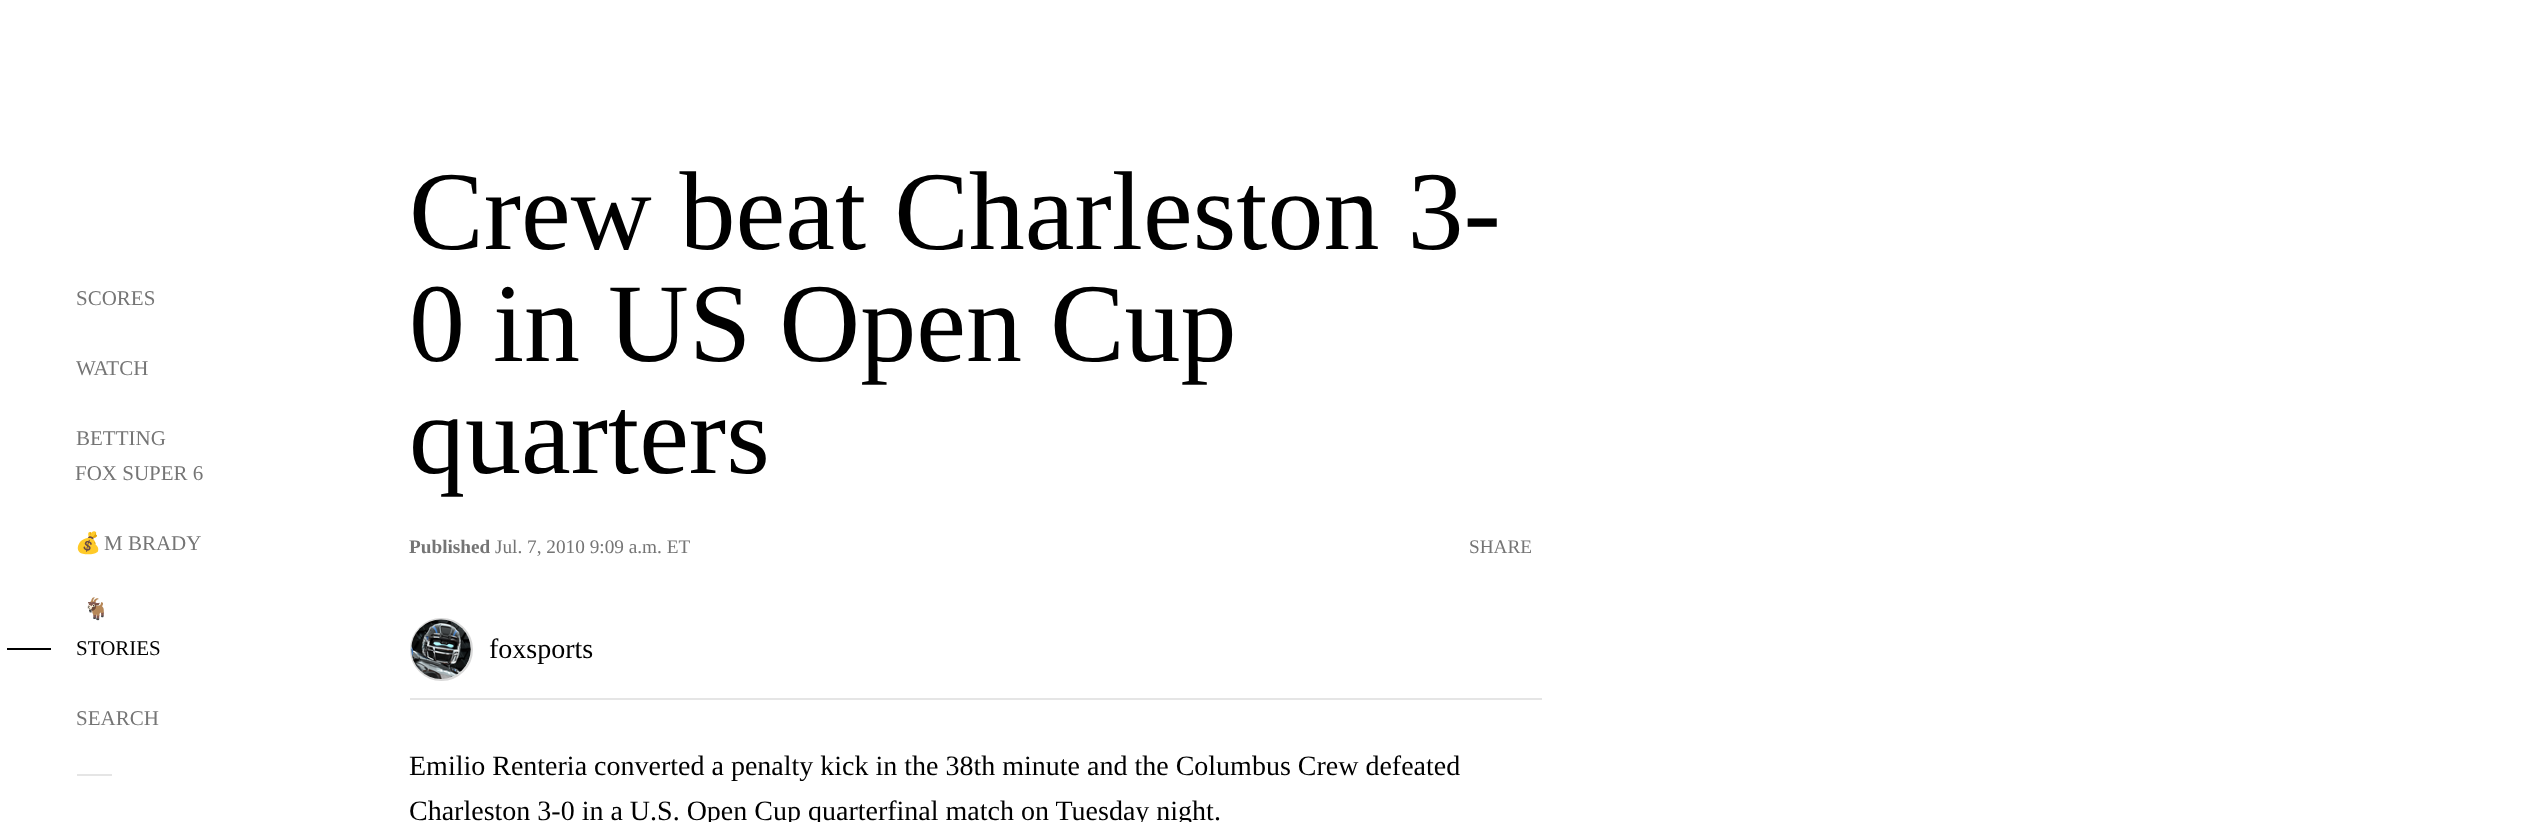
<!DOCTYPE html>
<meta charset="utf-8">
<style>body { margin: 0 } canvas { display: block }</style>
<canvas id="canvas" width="2538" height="822"></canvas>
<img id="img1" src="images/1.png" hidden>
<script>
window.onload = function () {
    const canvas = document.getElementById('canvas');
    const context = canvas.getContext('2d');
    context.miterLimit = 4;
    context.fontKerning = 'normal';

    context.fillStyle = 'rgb(255, 255, 255)';
    context.fillRect(0, 0, 2538, 822);
    context.fillStyle = 'rgb(0, 0, 0)';
    context.fillRect(7, 648, 44, 2);
    context.fillStyle = 'rgb(229, 229, 229)';
    context.fillRect(77, 774, 35, 2);
    context.fillRect(410, 698, 1132, 2);
    context.beginPath();
    context.arc(441.5, 649.5, 30.5, 0, 2 * Math.PI);
    context.strokeStyle = 'rgb(217, 217, 217)';
    context.lineWidth = 2;
    context.stroke();
    context.drawImage(document.getElementById('img1'), 411, 619, 60, 60);
    context.font = '21px Liberation Serif';
    context.fillStyle = 'rgb(117, 117, 117)';
    context.fillText('SCORES', 76, 305);
    context.fillText('WATCH', 76, 375);
    context.fillText('BETTING', 76, 445);
    context.fillText('FOX SUPER 6', 75, 480);
    context.font = '21px Noto Color Emoji';
    context.fillText('💰', 75, 550);
    context.font = '21px Liberation Serif';
    context.fillText('M BRADY', 104, 550);
    context.font = '21px Noto Color Emoji';
    context.fillStyle = 'rgb(0, 0, 0)';
    context.fillText('🐐', 83, 616);
    context.font = '21px Liberation Serif';
    context.fillText('STORIES', 76, 655);
    context.fillStyle = 'rgb(117, 117, 117)';
    context.fillText('SEARCH', 76, 725);
    context.font = '112px Liberation Serif';
    context.fillStyle = 'rgb(0, 0, 0)';
    context.fillText('Crew beat Charleston 3-', 409, 249);
    context.fillText('0 in US Open Cup', 409, 361);
    context.fillText('quarters', 409, 473);
    context.font = 'bold 19.25px Liberation Serif';
    context.fillStyle = 'rgb(117, 117, 117)';
    context.fillText('Published', 409, 553);
    context.font = '19.25px Liberation Serif';
    context.fillText('Jul. 7, 2010 9:09 a.m. ET', 495, 553);
    context.fillText('SHARE', 1469, 553);
    context.font = '28px Liberation Serif';
    context.fillStyle = 'rgb(0, 0, 0)';
    context.fillText('foxsports', 489, 658);
    context.fillText('Emilio Renteria converted a penalty kick in the 38th minute and the Columbus Crew defeated', 409, 775);
    context.fillText('Charleston 3-0 in a U.S. Open Cup quarterfinal match on Tuesday night.', 409, 820);
};
</script>
